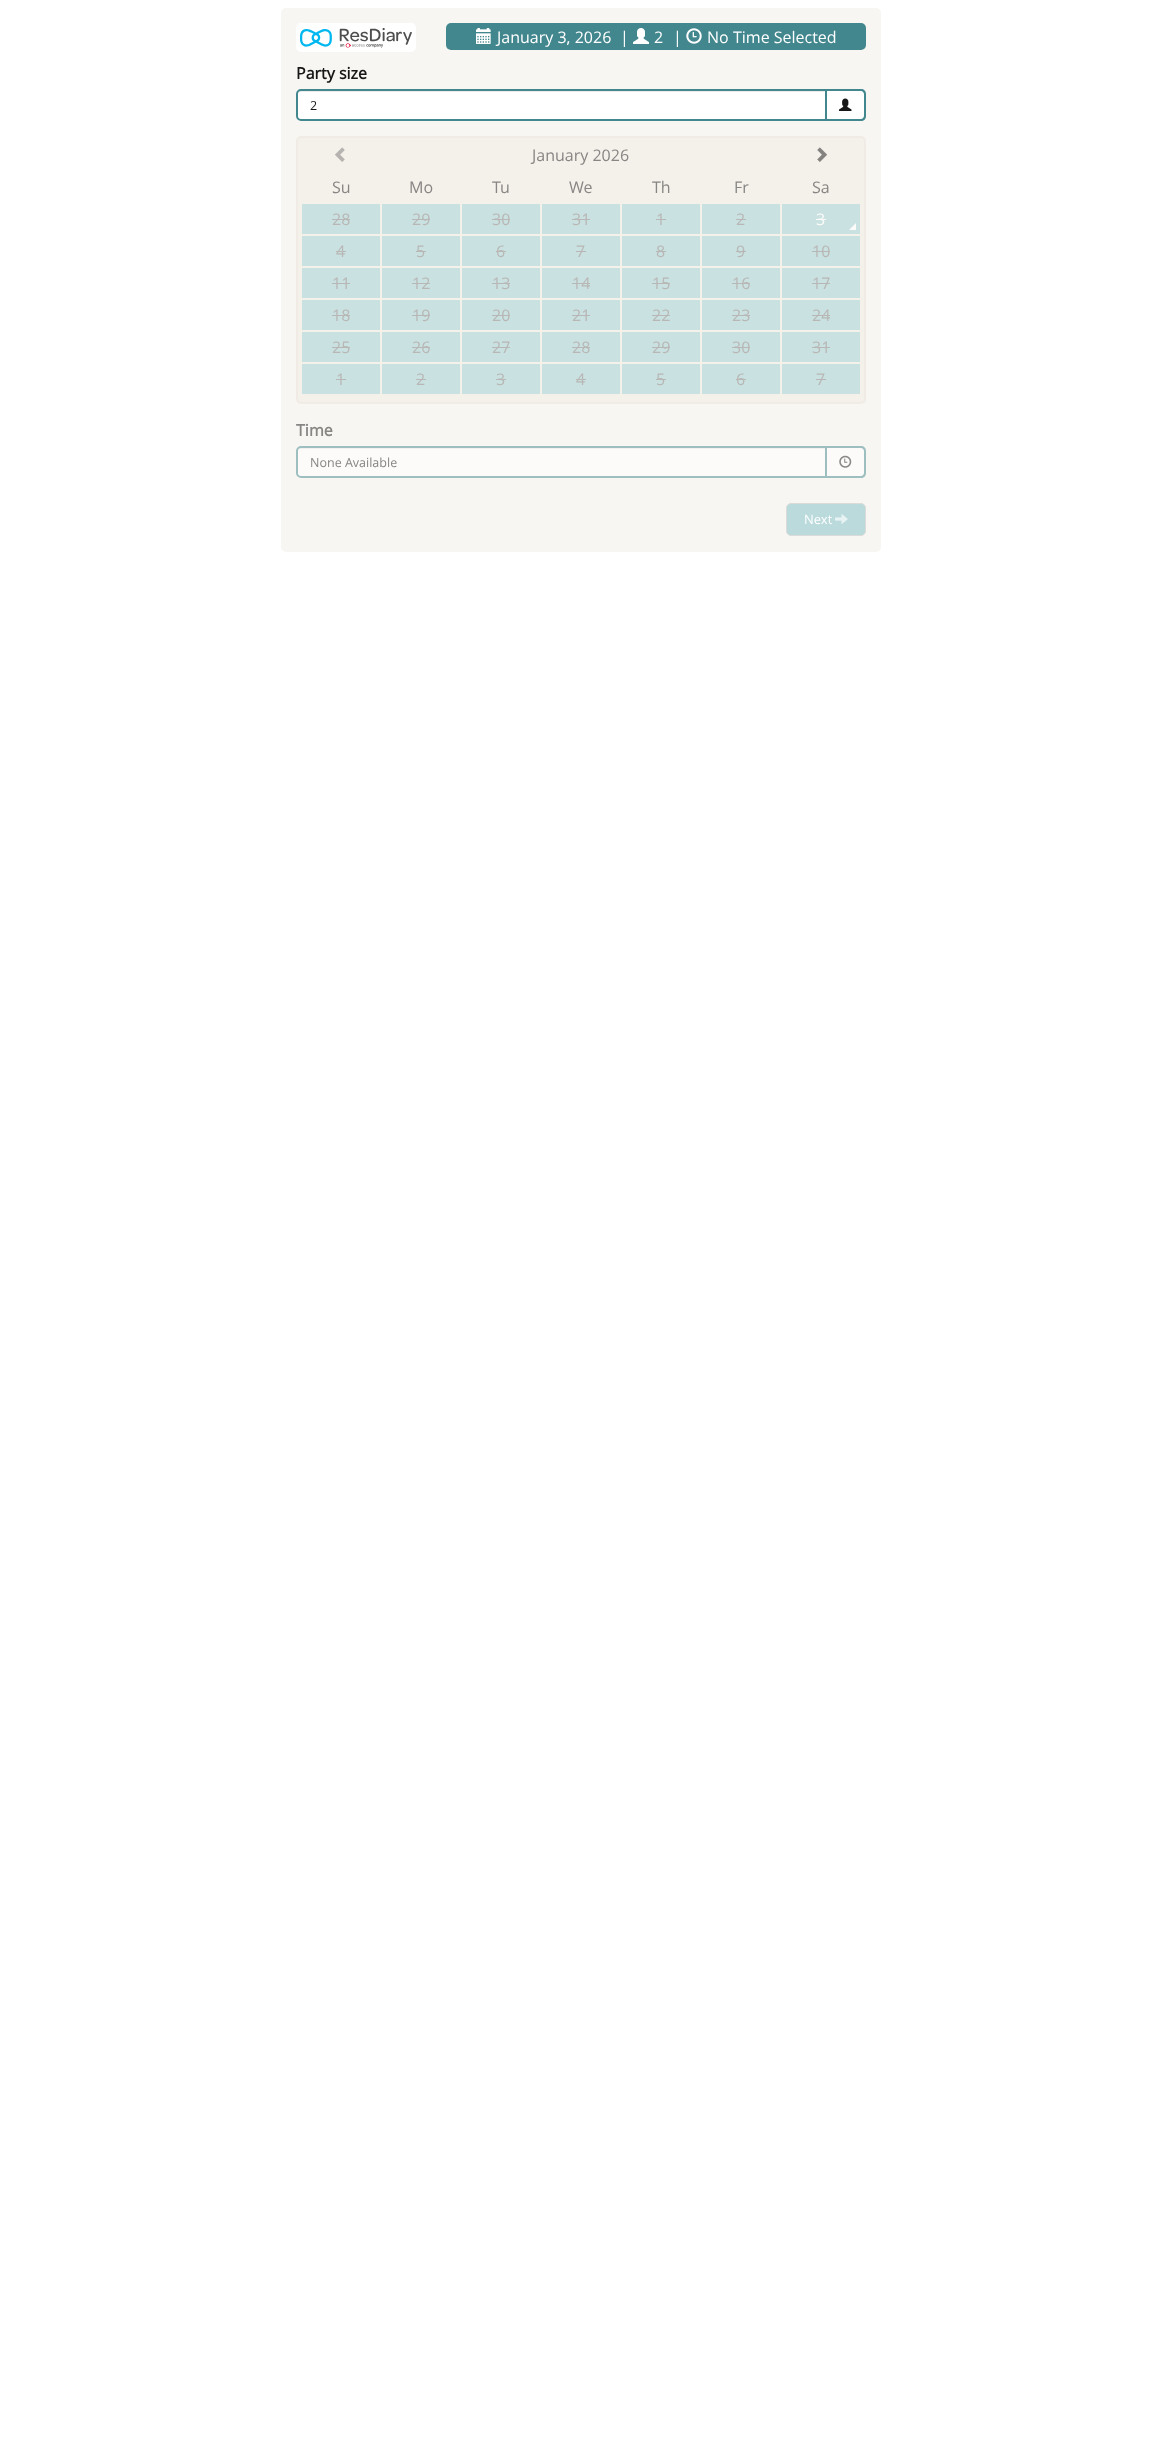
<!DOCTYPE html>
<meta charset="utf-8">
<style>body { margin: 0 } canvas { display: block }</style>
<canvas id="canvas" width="1162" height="2443"></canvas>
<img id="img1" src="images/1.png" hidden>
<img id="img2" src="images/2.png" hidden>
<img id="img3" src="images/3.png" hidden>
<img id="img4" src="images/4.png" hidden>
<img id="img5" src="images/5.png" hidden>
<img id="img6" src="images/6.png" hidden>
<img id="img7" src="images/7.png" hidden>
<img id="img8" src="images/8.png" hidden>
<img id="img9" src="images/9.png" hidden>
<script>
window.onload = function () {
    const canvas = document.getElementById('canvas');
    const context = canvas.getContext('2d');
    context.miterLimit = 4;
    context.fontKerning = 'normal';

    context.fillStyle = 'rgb(255, 255, 255)';
    context.fillRect(0, 0, 1162, 2443);
    context.fillStyle = 'rgb(248, 246, 242)';
    context.beginPath();
    context.roundRect(281, 8, 600, 544, 5);
    context.fill();
    context.fillStyle = 'rgb(255, 255, 255)';
    context.beginPath();
    context.roundRect(296, 23, 120, 29, 5);
    context.fill();
    context.drawImage(document.getElementById('img1'), 300, 28, 112, 20);
    context.fillStyle = 'rgb(67, 135, 142)';
    context.beginPath();
    context.roundRect(446, 23, 420, 27, 5);
    context.fill();
    context.drawImage(document.getElementById('img2'), 476, 28, 15, 16);
    context.drawImage(document.getElementById('img3'), 633, 28, 16, 16);
    context.drawImage(document.getElementById('img4'), 686, 28, 16, 16);
    context.fillStyle = 'rgb(255, 255, 255)';
    context.beginPath();
    context.roundRect(296, 89, 531, 32, [5, 0, 0, 5]);
    context.fill();
    context.fillStyle = 'rgb(236, 236, 236)';
    context.beginPath();
    context.moveTo(301, 92);
    context.lineTo(825, 92);
    context.lineTo(825, 91);
    context.lineTo(301, 91);
    context.bezierCurveTo(299, 91, 298, 93, 298, 95);
    context.bezierCurveTo(298, 93, 299, 92, 301, 92);
    context.closePath();
    context.fill();
    context.beginPath();
    context.roundRect(297, 90, 529, 30, [4, 0, 0, 4]);
    context.strokeStyle = 'rgb(67, 135, 142)';
    context.lineWidth = 2;
    context.stroke();
    context.fillStyle = 'rgb(255, 255, 255)';
    context.beginPath();
    context.roundRect(827, 89, 39, 32, [0, 5, 5, 0]);
    context.fill();
    context.fillStyle = 'rgb(67, 135, 142)';
    context.beginPath();
    context.moveTo(827, 89);
    context.lineTo(861, 89);
    context.bezierCurveTo(864, 89, 866, 91, 866, 94);
    context.lineTo(866, 116);
    context.bezierCurveTo(866, 119, 864, 121, 861, 121);
    context.lineTo(827, 121);
    context.closePath();
    context.moveTo(827, 91);
    context.lineTo(861, 91);
    context.bezierCurveTo(862.5, 91, 864, 92.5, 864, 94);
    context.lineTo(864, 116);
    context.bezierCurveTo(864, 117.5, 862.5, 119, 861, 119);
    context.lineTo(827, 119);
    context.closePath();
    context.fill('evenodd');
    context.drawImage(document.getElementById('img5'), 839, 98, 13, 13);
    context.fillStyle = 'rgb(244, 240, 234)';
    context.beginPath();
    context.roundRect(297, 137, 568, 266, 4);
    context.fill();
    context.strokeStyle = 'rgb(240, 235, 228)';
    context.stroke();
    context.drawImage(document.getElementById('img6'), 335, 147, 10, 15);
    context.drawImage(document.getElementById('img7'), 817, 147, 10, 15);
    context.fillStyle = 'rgb(201, 225, 225)';
    context.fillRect(302, 204, 78, 30);
    context.fillStyle = 'rgb(184, 183, 181)';
    context.fillRect(332, 219, 18, 1);
    context.fillStyle = 'rgb(201, 225, 225)';
    context.fillRect(382, 204, 78, 30);
    context.fillStyle = 'rgb(184, 183, 181)';
    context.fillRect(412, 219, 18, 1);
    context.fillStyle = 'rgb(201, 225, 225)';
    context.fillRect(462, 204, 78, 30);
    context.fillStyle = 'rgb(184, 183, 181)';
    context.fillRect(492, 219, 18, 1);
    context.fillStyle = 'rgb(201, 225, 225)';
    context.fillRect(542, 204, 78, 30);
    context.fillStyle = 'rgb(184, 183, 181)';
    context.fillRect(572, 219, 18, 1);
    context.fillStyle = 'rgb(201, 225, 225)';
    context.fillRect(622, 204, 78, 30);
    context.fillStyle = 'rgb(184, 183, 181)';
    context.fillRect(656, 219, 10, 1);
    context.fillStyle = 'rgb(201, 225, 225)';
    context.fillRect(702, 204, 78, 30);
    context.fillStyle = 'rgb(184, 183, 181)';
    context.fillRect(736, 219, 10, 1);
    context.fillStyle = 'rgb(201, 225, 225)';
    context.fillRect(782, 204, 78, 30);
    context.fillStyle = 'rgb(252, 251, 249)';
    context.fillRect(816, 219, 10, 1);
    context.beginPath();
    context.moveTo(856, 230);
    context.lineTo(849, 230);
    context.lineTo(856, 223);
    context.closePath();
    context.fill();
    context.fillStyle = 'rgb(201, 225, 225)';
    context.fillRect(302, 236, 78, 30);
    context.fillStyle = 'rgb(184, 183, 181)';
    context.fillRect(336, 251, 10, 1);
    context.fillStyle = 'rgb(201, 225, 225)';
    context.fillRect(382, 236, 78, 30);
    context.fillStyle = 'rgb(184, 183, 181)';
    context.fillRect(416, 251, 10, 1);
    context.fillStyle = 'rgb(201, 225, 225)';
    context.fillRect(462, 236, 78, 30);
    context.fillStyle = 'rgb(184, 183, 181)';
    context.fillRect(496, 251, 10, 1);
    context.fillStyle = 'rgb(201, 225, 225)';
    context.fillRect(542, 236, 78, 30);
    context.fillStyle = 'rgb(184, 183, 181)';
    context.fillRect(576, 251, 10, 1);
    context.fillStyle = 'rgb(201, 225, 225)';
    context.fillRect(622, 236, 78, 30);
    context.fillStyle = 'rgb(184, 183, 181)';
    context.fillRect(656, 251, 10, 1);
    context.fillStyle = 'rgb(201, 225, 225)';
    context.fillRect(702, 236, 78, 30);
    context.fillStyle = 'rgb(184, 183, 181)';
    context.fillRect(736, 251, 10, 1);
    context.fillStyle = 'rgb(201, 225, 225)';
    context.fillRect(782, 236, 78, 30);
    context.fillStyle = 'rgb(184, 183, 181)';
    context.fillRect(812, 251, 18, 1);
    context.fillStyle = 'rgb(201, 225, 225)';
    context.fillRect(302, 268, 78, 30);
    context.fillStyle = 'rgb(184, 183, 181)';
    context.fillRect(332, 283, 18, 1);
    context.fillStyle = 'rgb(201, 225, 225)';
    context.fillRect(382, 268, 78, 30);
    context.fillStyle = 'rgb(184, 183, 181)';
    context.fillRect(412, 283, 18, 1);
    context.fillStyle = 'rgb(201, 225, 225)';
    context.fillRect(462, 268, 78, 30);
    context.fillStyle = 'rgb(184, 183, 181)';
    context.fillRect(492, 283, 18, 1);
    context.fillStyle = 'rgb(201, 225, 225)';
    context.fillRect(542, 268, 78, 30);
    context.fillStyle = 'rgb(184, 183, 181)';
    context.fillRect(572, 283, 18, 1);
    context.fillStyle = 'rgb(201, 225, 225)';
    context.fillRect(622, 268, 78, 30);
    context.fillStyle = 'rgb(184, 183, 181)';
    context.fillRect(652, 283, 18, 1);
    context.fillStyle = 'rgb(201, 225, 225)';
    context.fillRect(702, 268, 78, 30);
    context.fillStyle = 'rgb(184, 183, 181)';
    context.fillRect(732, 283, 18, 1);
    context.fillStyle = 'rgb(201, 225, 225)';
    context.fillRect(782, 268, 78, 30);
    context.fillStyle = 'rgb(184, 183, 181)';
    context.fillRect(812, 283, 18, 1);
    context.fillStyle = 'rgb(201, 225, 225)';
    context.fillRect(302, 300, 78, 30);
    context.fillStyle = 'rgb(184, 183, 181)';
    context.fillRect(332, 315, 18, 1);
    context.fillStyle = 'rgb(201, 225, 225)';
    context.fillRect(382, 300, 78, 30);
    context.fillStyle = 'rgb(184, 183, 181)';
    context.fillRect(412, 315, 18, 1);
    context.fillStyle = 'rgb(201, 225, 225)';
    context.fillRect(462, 300, 78, 30);
    context.fillStyle = 'rgb(184, 183, 181)';
    context.fillRect(492, 315, 18, 1);
    context.fillStyle = 'rgb(201, 225, 225)';
    context.fillRect(542, 300, 78, 30);
    context.fillStyle = 'rgb(184, 183, 181)';
    context.fillRect(572, 315, 18, 1);
    context.fillStyle = 'rgb(201, 225, 225)';
    context.fillRect(622, 300, 78, 30);
    context.fillStyle = 'rgb(184, 183, 181)';
    context.fillRect(652, 315, 18, 1);
    context.fillStyle = 'rgb(201, 225, 225)';
    context.fillRect(702, 300, 78, 30);
    context.fillStyle = 'rgb(184, 183, 181)';
    context.fillRect(732, 315, 18, 1);
    context.fillStyle = 'rgb(201, 225, 225)';
    context.fillRect(782, 300, 78, 30);
    context.fillStyle = 'rgb(184, 183, 181)';
    context.fillRect(812, 315, 18, 1);
    context.fillStyle = 'rgb(201, 225, 225)';
    context.fillRect(302, 332, 78, 30);
    context.fillStyle = 'rgb(184, 183, 181)';
    context.fillRect(332, 347, 18, 1);
    context.fillStyle = 'rgb(201, 225, 225)';
    context.fillRect(382, 332, 78, 30);
    context.fillStyle = 'rgb(184, 183, 181)';
    context.fillRect(412, 347, 18, 1);
    context.fillStyle = 'rgb(201, 225, 225)';
    context.fillRect(462, 332, 78, 30);
    context.fillStyle = 'rgb(184, 183, 181)';
    context.fillRect(492, 347, 18, 1);
    context.fillStyle = 'rgb(201, 225, 225)';
    context.fillRect(542, 332, 78, 30);
    context.fillStyle = 'rgb(184, 183, 181)';
    context.fillRect(572, 347, 18, 1);
    context.fillStyle = 'rgb(201, 225, 225)';
    context.fillRect(622, 332, 78, 30);
    context.fillStyle = 'rgb(184, 183, 181)';
    context.fillRect(652, 347, 18, 1);
    context.fillStyle = 'rgb(201, 225, 225)';
    context.fillRect(702, 332, 78, 30);
    context.fillStyle = 'rgb(184, 183, 181)';
    context.fillRect(732, 347, 18, 1);
    context.fillStyle = 'rgb(201, 225, 225)';
    context.fillRect(782, 332, 78, 30);
    context.fillStyle = 'rgb(184, 183, 181)';
    context.fillRect(812, 347, 18, 1);
    context.fillStyle = 'rgb(201, 225, 225)';
    context.fillRect(302, 364, 78, 30);
    context.fillStyle = 'rgb(184, 183, 181)';
    context.fillRect(336, 379, 10, 1);
    context.fillStyle = 'rgb(201, 225, 225)';
    context.fillRect(382, 364, 78, 30);
    context.fillStyle = 'rgb(184, 183, 181)';
    context.fillRect(416, 379, 10, 1);
    context.fillStyle = 'rgb(201, 225, 225)';
    context.fillRect(462, 364, 78, 30);
    context.fillStyle = 'rgb(184, 183, 181)';
    context.fillRect(496, 379, 10, 1);
    context.fillStyle = 'rgb(201, 225, 225)';
    context.fillRect(542, 364, 78, 30);
    context.fillStyle = 'rgb(184, 183, 181)';
    context.fillRect(576, 379, 10, 1);
    context.fillStyle = 'rgb(201, 225, 225)';
    context.fillRect(622, 364, 78, 30);
    context.fillStyle = 'rgb(184, 183, 181)';
    context.fillRect(656, 379, 10, 1);
    context.fillStyle = 'rgb(201, 225, 225)';
    context.fillRect(702, 364, 78, 30);
    context.fillStyle = 'rgb(184, 183, 181)';
    context.fillRect(736, 379, 10, 1);
    context.fillStyle = 'rgb(201, 225, 225)';
    context.fillRect(782, 364, 78, 30);
    context.fillStyle = 'rgb(184, 183, 181)';
    context.fillRect(816, 379, 10, 1);
    context.fillStyle = 'rgb(252, 251, 249)';
    context.beginPath();
    context.roundRect(296, 446, 531, 32, [5, 0, 0, 5]);
    context.fill();
    context.fillStyle = 'rgb(242, 241, 239)';
    context.beginPath();
    context.moveTo(301, 449);
    context.lineTo(825, 449);
    context.lineTo(825, 448);
    context.lineTo(301, 448);
    context.bezierCurveTo(299, 448, 298, 450, 298, 452);
    context.bezierCurveTo(298, 450, 299, 449, 301, 449);
    context.closePath();
    context.fill();
    context.beginPath();
    context.roundRect(297, 447, 529, 30, [4, 0, 0, 4]);
    context.strokeStyle = 'rgb(158, 191, 192)';
    context.stroke();
    context.fillStyle = 'rgb(252, 251, 249)';
    context.beginPath();
    context.roundRect(827, 446, 39, 32, [0, 5, 5, 0]);
    context.fill();
    context.fillStyle = 'rgb(158, 191, 192)';
    context.beginPath();
    context.moveTo(827, 446);
    context.lineTo(861, 446);
    context.bezierCurveTo(864, 446, 866, 448, 866, 451);
    context.lineTo(866, 473);
    context.bezierCurveTo(866, 476, 864, 478, 861, 478);
    context.lineTo(827, 478);
    context.closePath();
    context.moveTo(827, 448);
    context.lineTo(861, 448);
    context.bezierCurveTo(862.5, 448, 864, 449.5, 864, 451);
    context.lineTo(864, 473);
    context.bezierCurveTo(864, 474.5, 862.5, 476, 861, 476);
    context.lineTo(827, 476);
    context.closePath();
    context.fill('evenodd');
    context.drawImage(document.getElementById('img8'), 839, 455, 13, 13);
    context.fillStyle = 'rgb(187, 218, 220)';
    context.beginPath();
    context.roundRect(786.5, 503.5, 79, 32, 4.5);
    context.fill();
    context.strokeStyle = 'rgb(219, 219, 217)';
    context.lineWidth = 1;
    context.stroke();
    context.drawImage(document.getElementById('img9'), 835, 514, 13, 10);
    context.font = '16px Open Sans';
    context.fillStyle = 'rgb(255, 255, 255)';
    context.fillText('January 3, 2026', 497, 43);
    context.fillText('|', 620, 43);
    context.fillText('2', 654, 43);
    context.fillText('|', 673, 43);
    context.fillText('No Time Selected', 707, 43);
    context.font = 'bold 16px Open Sans';
    context.fillStyle = 'rgb(22, 22, 22)';
    context.fillText('Party size', 296, 79);
    context.font = '12.5px Open Sans';
    context.fillText('2', 310, 110);
    context.font = '16px Open Sans';
    context.fillStyle = 'rgb(135, 134, 132)';
    context.fillText('January 2026', 532, 161);
    context.fillText('Su', 332, 193);
    context.fillText('Mo', 409, 193);
    context.fillText('Tu', 492, 193);
    context.fillText('We', 569, 193);
    context.fillText('Th', 652, 193);
    context.fillText('Fr', 734, 193);
    context.fillText('Sa', 812, 193);
    context.fillStyle = 'rgb(184, 183, 181)';
    context.fillText('28', 332, 225);
    context.fillText('29', 412, 225);
    context.fillText('30', 492, 225);
    context.fillText('31', 572, 225);
    context.fillText('1', 656, 225);
    context.fillText('2', 736, 225);
    context.fillStyle = 'rgb(252, 251, 249)';
    context.fillText('3', 816, 225);
    context.fillStyle = 'rgb(184, 183, 181)';
    context.fillText('4', 336, 257);
    context.fillText('5', 416, 257);
    context.fillText('6', 496, 257);
    context.fillText('7', 576, 257);
    context.fillText('8', 656, 257);
    context.fillText('9', 736, 257);
    context.fillText('10', 812, 257);
    context.fillText('11', 332, 289);
    context.fillText('12', 412, 289);
    context.fillText('13', 492, 289);
    context.fillText('14', 572, 289);
    context.fillText('15', 652, 289);
    context.fillText('16', 732, 289);
    context.fillText('17', 812, 289);
    context.fillText('18', 332, 321);
    context.fillText('19', 412, 321);
    context.fillText('20', 492, 321);
    context.fillText('21', 572, 321);
    context.fillText('22', 652, 321);
    context.fillText('23', 732, 321);
    context.fillText('24', 812, 321);
    context.fillText('25', 332, 353);
    context.fillText('26', 412, 353);
    context.fillText('27', 492, 353);
    context.fillText('28', 572, 353);
    context.fillText('29', 652, 353);
    context.fillText('30', 732, 353);
    context.fillText('31', 812, 353);
    context.fillText('1', 336, 385);
    context.fillText('2', 416, 385);
    context.fillText('3', 496, 385);
    context.fillText('4', 576, 385);
    context.fillText('5', 656, 385);
    context.fillText('6', 736, 385);
    context.fillText('7', 816, 385);
    context.font = 'bold 16px Open Sans';
    context.fillStyle = 'rgb(135, 134, 132)';
    context.fillText('Time', 296, 436);
    context.font = '12.5px Open Sans';
    context.fillText('None Available', 310, 467);
    context.font = '13px Open Sans';
    context.fillStyle = 'rgb(255, 255, 255)';
    context.fillText('Next', 804, 524);
};
</script>
